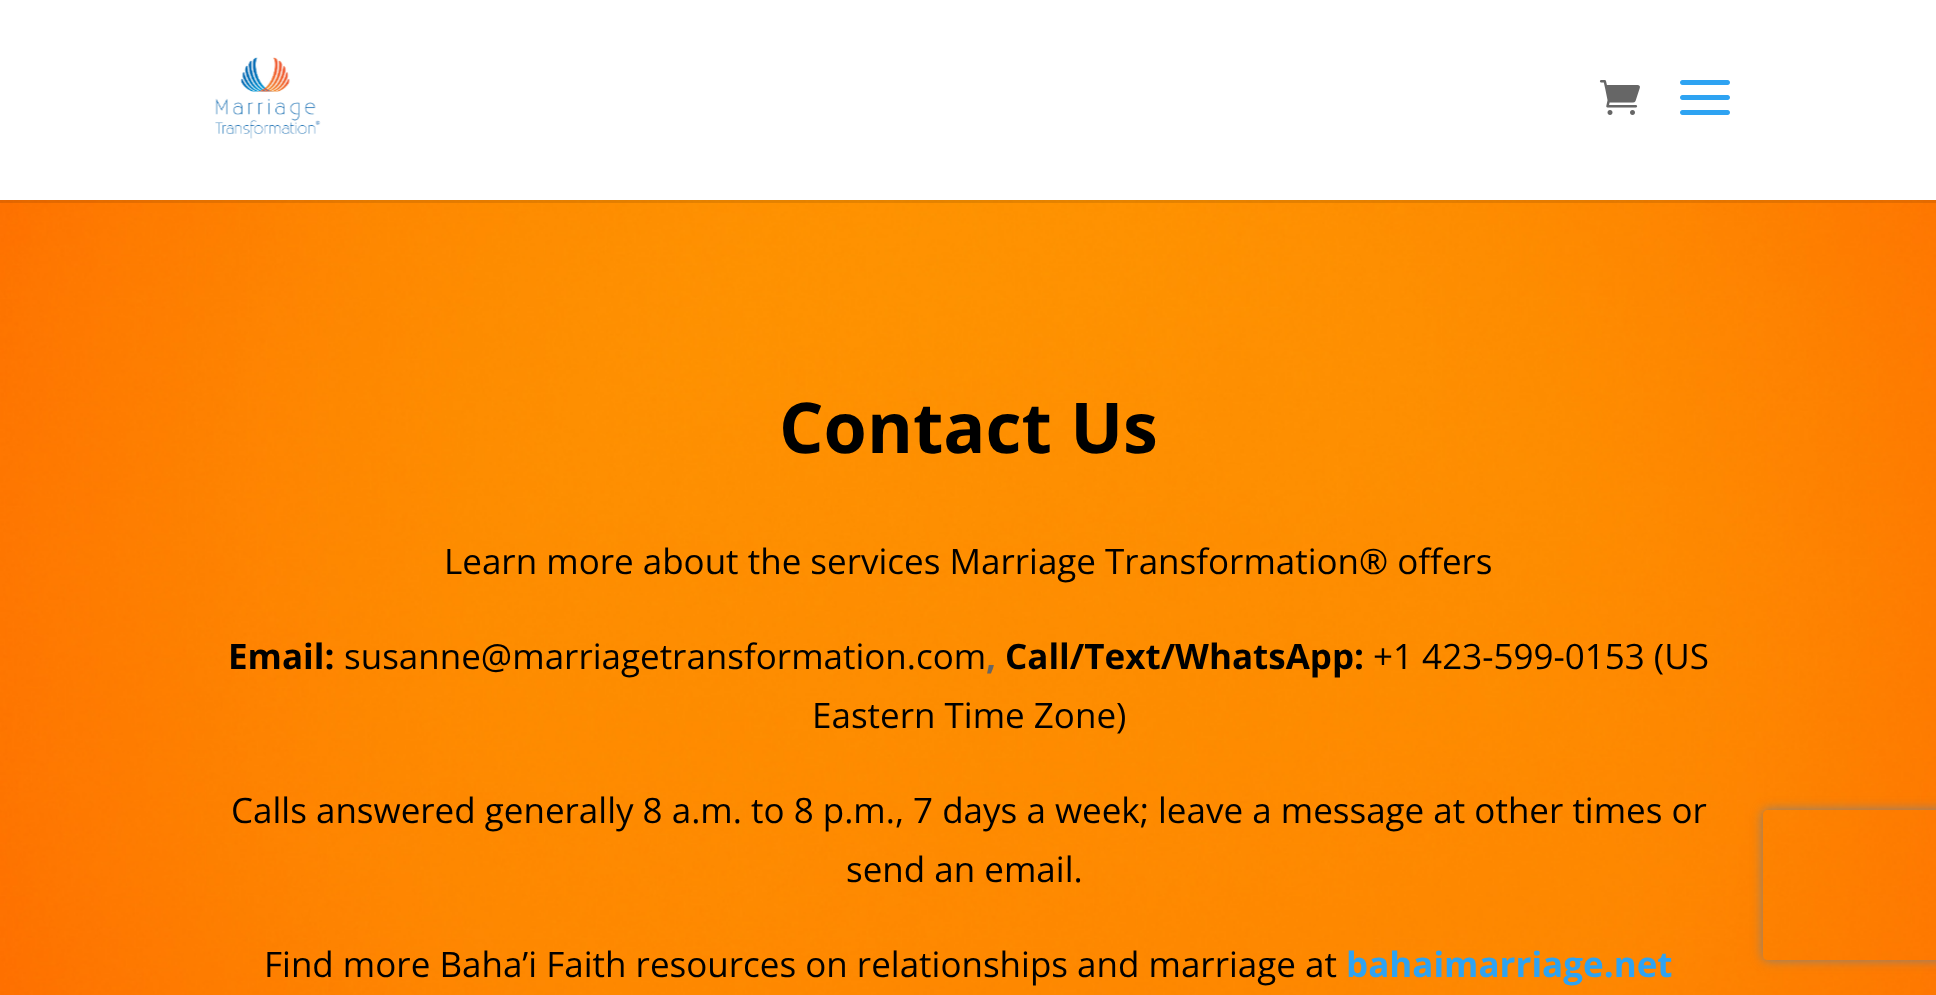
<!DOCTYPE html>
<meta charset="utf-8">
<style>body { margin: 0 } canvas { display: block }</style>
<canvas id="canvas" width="1936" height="995"></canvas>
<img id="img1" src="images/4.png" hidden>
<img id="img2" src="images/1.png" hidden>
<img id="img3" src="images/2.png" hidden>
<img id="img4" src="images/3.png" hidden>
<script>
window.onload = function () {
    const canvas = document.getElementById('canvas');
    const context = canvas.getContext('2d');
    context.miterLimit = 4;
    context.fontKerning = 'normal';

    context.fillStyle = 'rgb(255, 255, 255)';
    context.fillRect(0, 0, 1936, 995);
    context.drawImage(document.getElementById('img1'), 0, 200, 1936, 795);
    context.fillStyle = 'rgba(0, 0, 0, 0.1)';
    context.beginPath();
    context.moveTo(0, 200);
    context.lineTo(0, 203);
    context.lineTo(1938, 203);
    context.lineTo(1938, 3);
    context.lineTo(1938, 200);
    context.closePath();
    context.fill();
    context.drawImage(document.getElementById('img2'), 215, 57, 106, 82);
    context.drawImage(document.getElementById('img3'), 1599, 80, 41, 35);
    context.drawImage(document.getElementById('img4'), 1680, 80, 50, 35);
    context.save();
    context.beginPath();
    context.moveTo(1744, 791);
    context.lineTo(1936, 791);
    context.lineTo(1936, 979);
    context.lineTo(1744, 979);
    context.closePath();
    context.moveTo(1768, 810);
    context.lineTo(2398, 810);
    context.bezierCurveTo(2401, 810, 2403, 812, 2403, 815);
    context.lineTo(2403, 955);
    context.bezierCurveTo(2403, 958, 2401, 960, 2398, 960);
    context.lineTo(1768, 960);
    context.bezierCurveTo(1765, 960, 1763, 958, 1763, 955);
    context.lineTo(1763, 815);
    context.bezierCurveTo(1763, 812, 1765, 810, 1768, 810);
    context.closePath();
    context.clip('evenodd');
    context.fillStyle = 'rgb(128, 128, 128)';
    context.filter = 'blur(6px)';
    context.beginPath();
    context.roundRect(1763, 810, 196, 150, 5);
    context.fill();
    context.filter = 'none';
    context.restore();
    context.font = 'bold 70px Open Sans';
    context.fillStyle = 'rgb(0, 0, 0)';
    context.fillText('Contact Us', 779, 453);
    context.font = '35px Open Sans';
    context.fillText('Learn more about the services Marriage Transformation® offers', 444, 574);
    context.font = 'bold 35px Open Sans';
    context.fillText('Email:', 228, 669);
    context.font = '35px Open Sans';
    context.fillText('susanne@marriagetransformation.com', 344, 669);
    context.font = 'bold 35px Open Sans';
    context.fillStyle = 'rgb(102, 102, 102)';
    context.fillText(',', 986, 669);
    context.fillStyle = 'rgb(0, 0, 0)';
    context.fillText('Call/Text/WhatsApp:', 1005, 669);
    context.font = '35px Open Sans';
    context.fillText('+1 423-599-0153 (US', 1373, 669);
    context.fillText('Eastern Time Zone)', 812, 728);
    context.fillText('Calls answered generally 8 a.m. to 8 p.m., 7 days a week; leave a message at other times or', 231, 823);
    context.fillText('send an email.', 846, 882);
    context.fillText('Find more Baha’i Faith resources on relationships and marriage at', 264, 977);
    context.font = 'bold 35px Open Sans';
    context.fillStyle = 'rgb(46, 163, 242)';
    context.fillText('bahaimarriage.net', 1346, 977);
};
</script>
